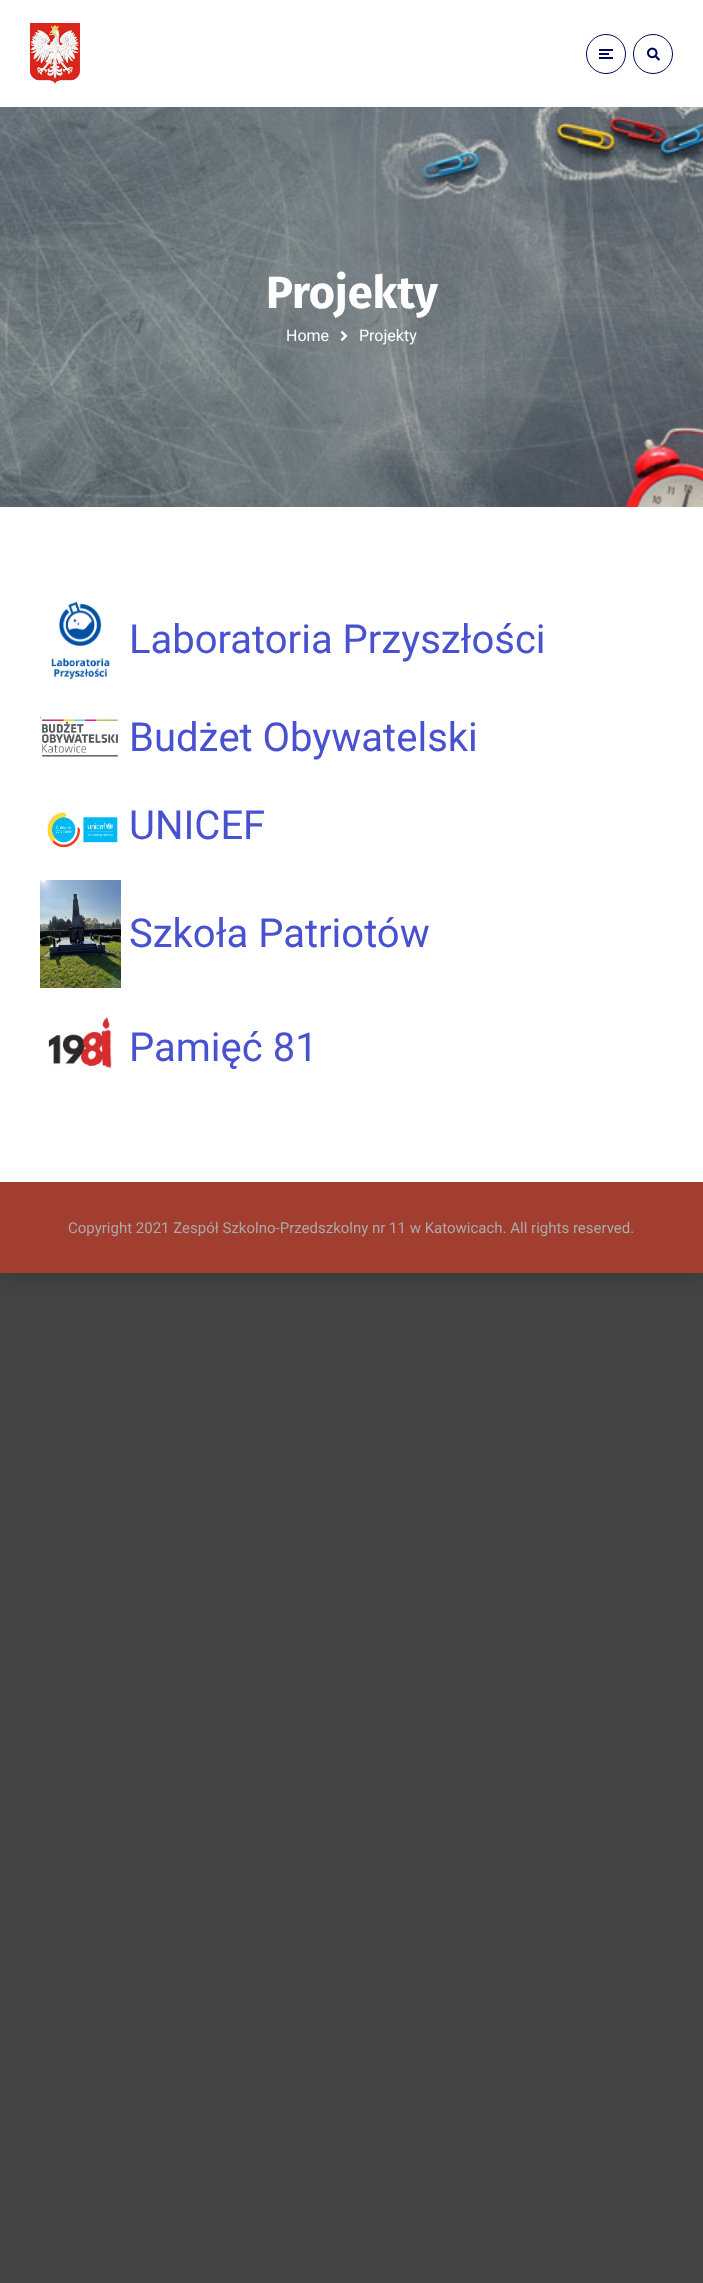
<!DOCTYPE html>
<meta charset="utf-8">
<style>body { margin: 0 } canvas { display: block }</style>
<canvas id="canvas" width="703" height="2283"></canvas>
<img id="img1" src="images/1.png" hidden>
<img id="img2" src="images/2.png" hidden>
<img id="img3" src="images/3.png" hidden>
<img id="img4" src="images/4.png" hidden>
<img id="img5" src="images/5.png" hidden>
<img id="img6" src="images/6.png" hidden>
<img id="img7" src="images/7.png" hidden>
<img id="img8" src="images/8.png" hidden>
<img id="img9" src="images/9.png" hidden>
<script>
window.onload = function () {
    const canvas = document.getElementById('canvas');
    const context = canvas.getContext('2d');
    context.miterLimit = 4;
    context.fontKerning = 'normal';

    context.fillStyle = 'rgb(68, 68, 68)';
    context.fillRect(0, 0, 703, 2283);
    context.fillStyle = 'rgba(0, 0, 0, 0.21)';
    context.filter = 'blur(11px)';
    context.beginPath();
    context.rect(0, 0, 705, 1275);
    context.fill();
    context.filter = 'none';
    context.fillStyle = 'rgb(255, 255, 255)';
    context.fillRect(0, 0, 703, 107);
    context.drawImage(document.getElementById('img1'), 30, 23, 50, 61);
    context.beginPath();
    context.arc(606, 54, 19.5, 0, 2 * Math.PI);
    context.strokeStyle = 'rgb(0, 6, 91)';
    context.stroke();
    context.fillStyle = 'rgb(0, 6, 91)';
    context.fillRect(599, 49, 14, 2);
    context.fillRect(599, 53, 10, 2);
    context.fillRect(599, 57, 14, 2);
    context.beginPath();
    context.arc(653, 54, 19.5, 0, 2 * Math.PI);
    context.stroke();
    context.drawImage(document.getElementById('img2'), 647, 47, 13, 14);
    context.drawImage(document.getElementById('img3'), 0, 107, 703, 400);
    context.drawImage(document.getElementById('img4'), 340, 331, 8, 10);
    context.fillStyle = 'rgb(255, 255, 255)';
    context.fillRect(0, 507, 703, 675);
    context.drawImage(document.getElementById('img5'), 51, 601, 59, 79);
    context.drawImage(document.getElementById('img6'), 40, 717, 78, 40);
    context.drawImage(document.getElementById('img7'), 47, 812, 71, 36);
    context.drawImage(document.getElementById('img8'), 40, 880, 81, 108);
    context.drawImage(document.getElementById('img9'), 48, 1017, 64, 52);
    context.fillStyle = 'rgb(161, 62, 47)';
    context.fillRect(0, 1182, 703, 91);
    context.font = 'bold 45px Fira Sans';
    context.fillStyle = 'rgb(255, 255, 255)';
    context.fillText('Projekty', 266, 308);
    context.font = '16px Roboto';
    context.fillText('Home', 286, 341);
    context.fillText('Projekty', 359, 341);
    context.font = '40px Roboto';
    context.fillStyle = 'rgb(72, 81, 208)';
    context.fillText('Laboratoria Przyszłości', 129, 653);
    context.fillText('Budżet Obywatelski', 129, 751);
    context.fillText('UNICEF', 129, 839);
    context.fillText('Szkoła Patriotów', 129, 947);
    context.fillText('Pamięć 81', 129, 1061);
    context.font = '15px Roboto';
    context.fillStyle = 'rgb(170, 170, 170)';
    context.fillText('Copyright 2021 Zespół Szkolno-Przedszkolny nr 11 w Katowicach. All rights reserved.', 68, 1233);
};
</script>
